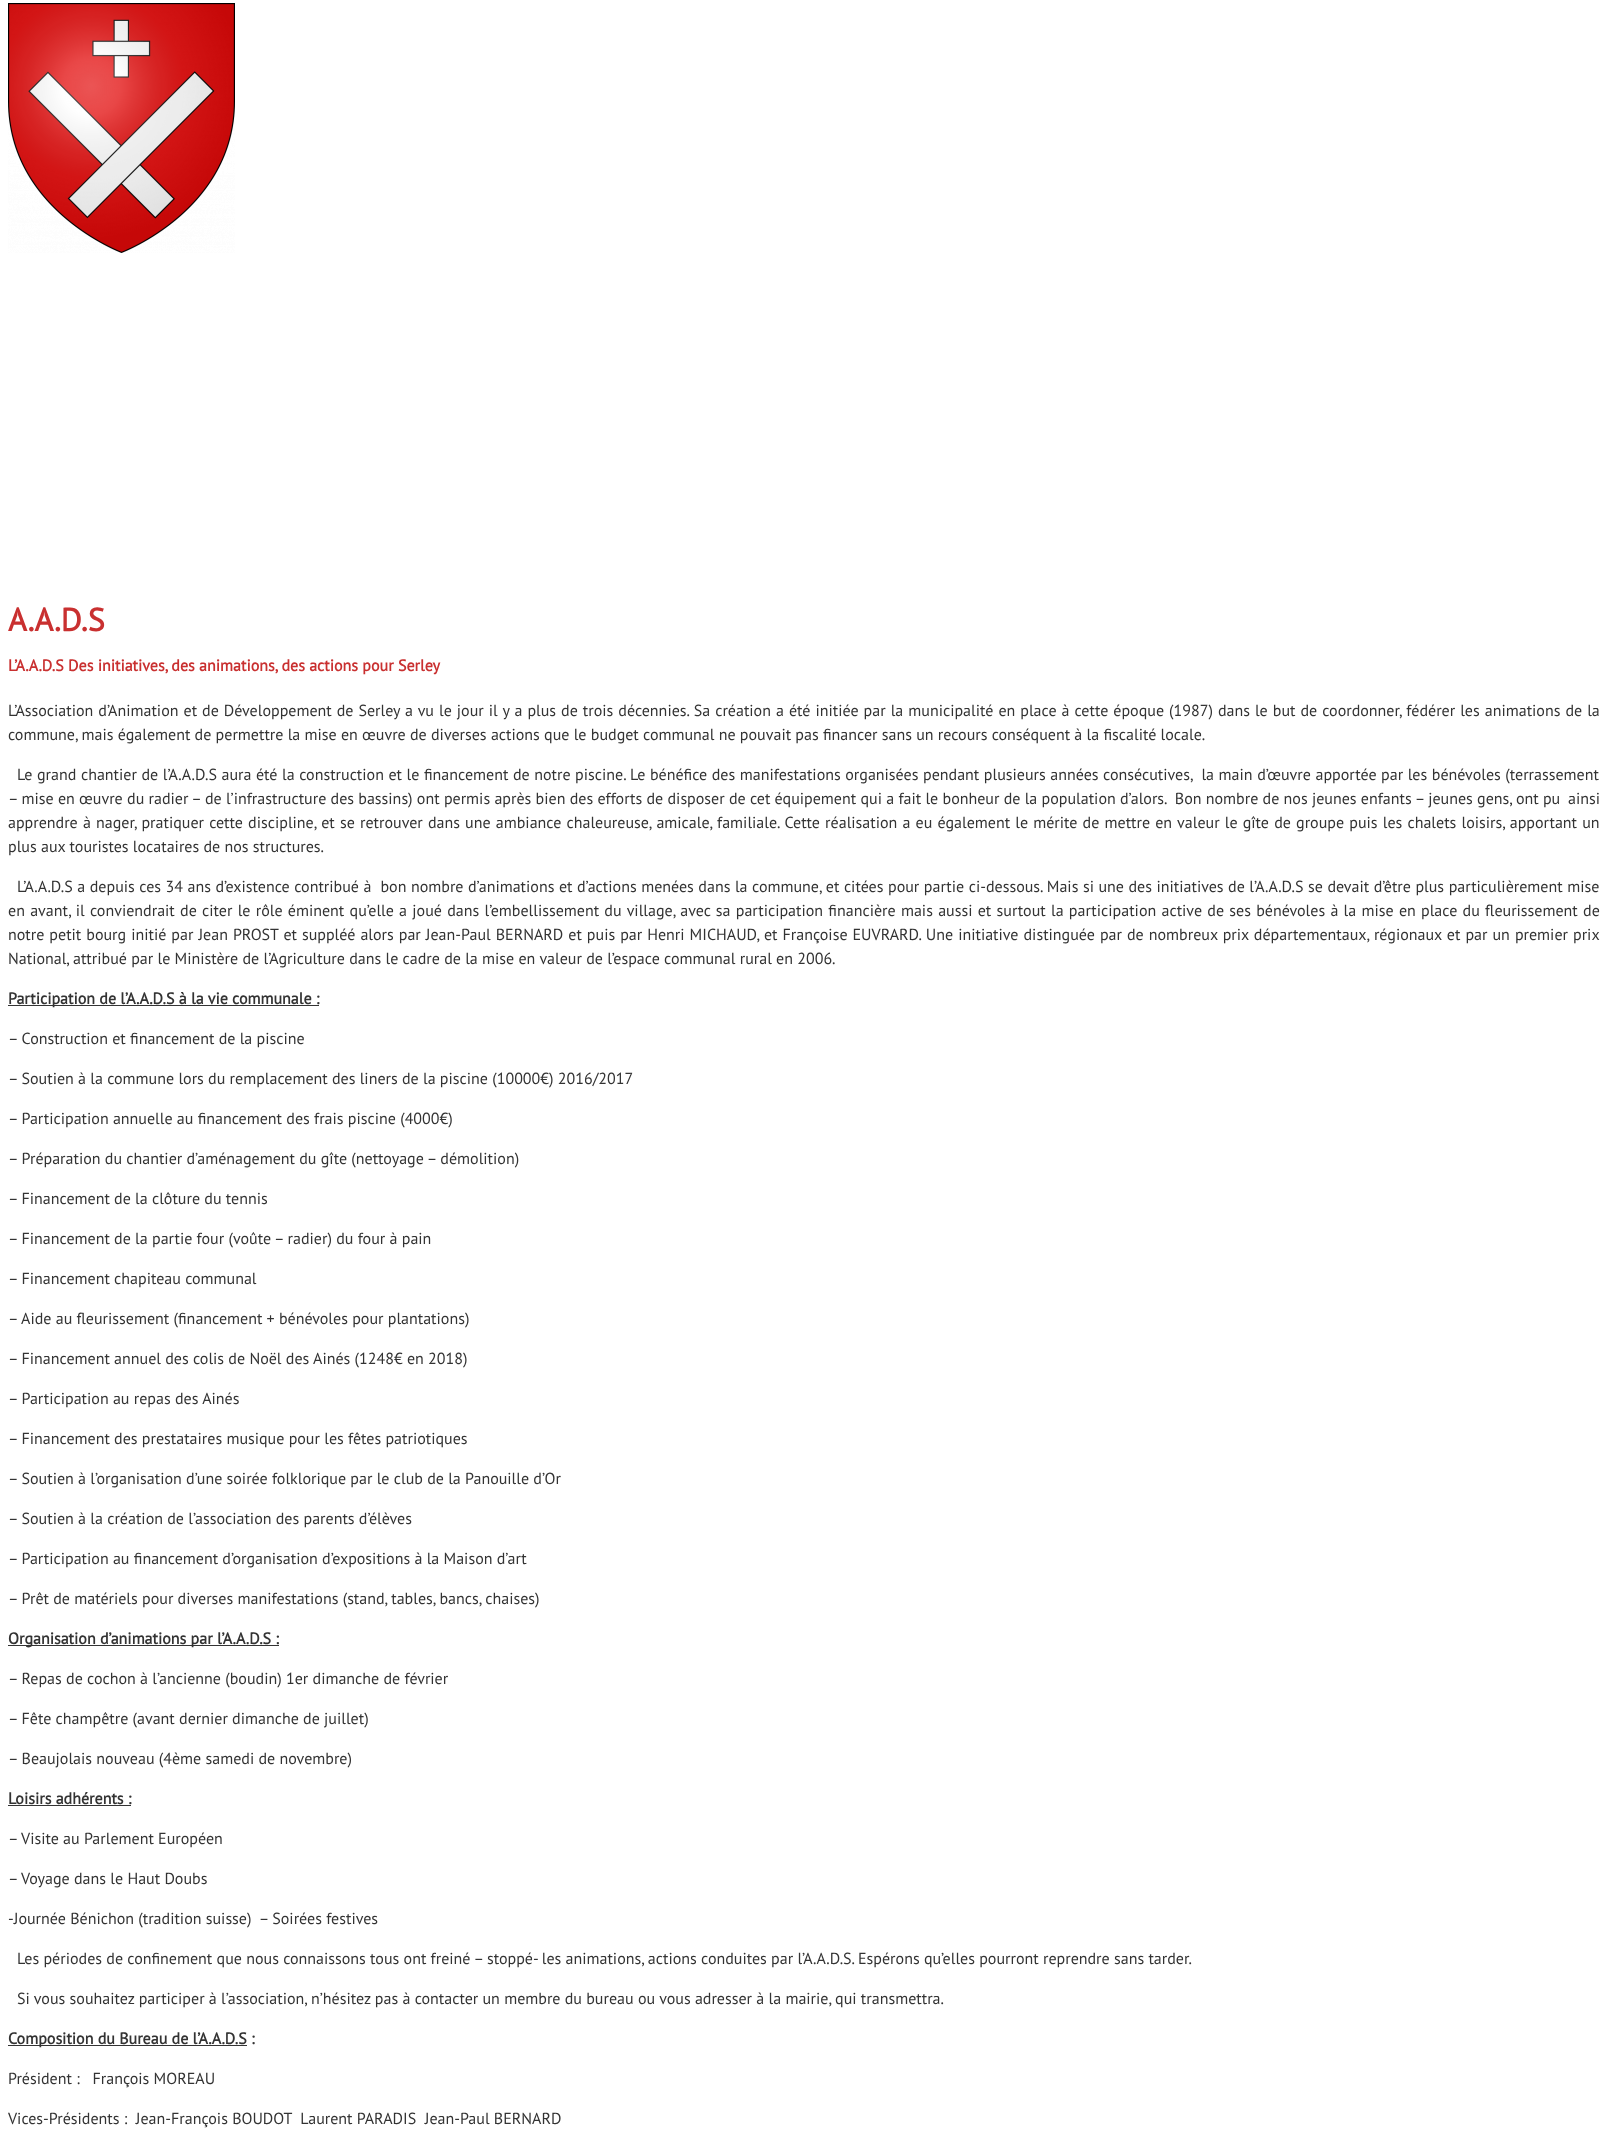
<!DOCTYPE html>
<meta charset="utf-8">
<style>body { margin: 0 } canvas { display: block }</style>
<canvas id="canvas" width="1608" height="2142"></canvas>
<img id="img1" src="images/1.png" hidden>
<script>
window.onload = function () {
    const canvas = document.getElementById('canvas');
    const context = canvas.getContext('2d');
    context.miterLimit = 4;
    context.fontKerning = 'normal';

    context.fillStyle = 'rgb(255, 255, 255)';
    context.fillRect(0, 0, 1608, 2142);
    context.drawImage(document.getElementById('img1'), 8, 3, 227, 250);
    context.fillStyle = 'rgb(51, 51, 51)';
    context.fillRect(8, 1005, 311, 1);
    context.fillRect(8, 1645, 271, 1);
    context.fillRect(8, 1805, 123, 1);
    context.fillRect(8, 2045, 239, 1);
    context.font = 'bold 32px PT Sans';
    context.fillStyle = 'rgb(201, 48, 48)';
    context.fillText('A.A.D.S', 8, 631);
    context.font = 'bold 16px PT Sans';
    context.fillText('L’A.A.D.S Des initiatives, des animations, des actions pour Serley', 8, 671);
    context.wordSpacing = '0.75px';
    context.font = '16px PT Sans';
    context.fillStyle = 'rgb(51, 51, 51)';
    context.fillText('L’Association d’Animation et de Développement de Serley a vu le jour il y a plus de trois décennies. Sa création a été initiée par la municipalité en place à cette époque (1987) dans le but de coordonner, fédérer les animations de la', 8, 716);
    context.wordSpacing = '0px';
    context.fillText('commune, mais également de permettre la mise en œuvre de diverses actions que le budget communal ne pouvait pas financer sans un recours conséquent à la fiscalité locale.', 8, 740);
    context.wordSpacing = '0.3px';
    context.fillText('Le grand chantier de l’A.A.D.S aura été la construction et le financement de notre piscine. Le bénéfice des manifestations organisées pendant plusieurs années consécutives,  la main d’œuvre apportée par les bénévoles (terrassement', 17, 780);
    context.wordSpacing = '0px';
    context.fillText('– mise en œuvre du radier – de l’infrastructure des bassins) ont permis après bien des efforts de disposer de cet équipement qui a fait le bonheur de la population d’alors.  Bon nombre de nos jeunes enfants – jeunes gens, ont pu', 8, 804);
    context.fillText('ainsi', 1568, 804);
    context.wordSpacing = '0.9px';
    context.fillText('apprendre à nager, pratiquer cette discipline, et se retrouver dans une ambiance chaleureuse, amicale, familiale. Cette réalisation a eu également le mérite de mettre en valeur le gîte de groupe puis les chalets loisirs, apportant un', 8, 828);
    context.wordSpacing = '0px';
    context.fillText('plus aux touristes locataires de nos structures.', 8, 852);
    context.wordSpacing = '0.25px';
    context.fillText('L’A.A.D.S a depuis ces 34 ans d’existence contribué à  bon nombre d’animations et d’actions menées dans la commune, et citées pour partie ci-dessous. Mais si une des initiatives de l’A.A.D.S se devait d’être plus particulièrement mise', 17, 892);
    context.wordSpacing = '1px';
    context.fillText('en avant, il conviendrait de citer le rôle éminent qu’elle a joué dans l’embellissement du village, avec sa participation financière mais aussi et surtout la participation active de ses bénévoles à la mise en place du fleurissement de', 8, 916);
    context.wordSpacing = '0.75px';
    context.fillText('notre petit bourg initié par Jean PROST et suppléé alors par Jean-Paul BERNARD et puis par Henri MICHAUD, et Françoise EUVRARD. Une initiative distinguée par de nombreux prix départementaux, régionaux et par un premier prix', 8, 940);
    context.wordSpacing = '0px';
    context.fillText('National, attribué par le Ministère de l’Agriculture dans le cadre de la mise en valeur de l’espace communal rural en 2006.', 8, 964);
    context.font = 'bold 16px PT Sans';
    context.fillText('Participation de l’A.A.D.S à la vie communale :', 8, 1004);
    context.font = '16px PT Sans';
    context.fillText('– Construction et financement de la piscine', 8, 1044);
    context.fillText('– Soutien à la commune lors du remplacement des liners de la piscine (10000€) 2016/2017', 8, 1084);
    context.fillText('– Participation annuelle au financement des frais piscine (4000€)', 8, 1124);
    context.fillText('– Préparation du chantier d’aménagement du gîte (nettoyage – démolition)', 8, 1164);
    context.fillText('– Financement de la clôture du tennis', 8, 1204);
    context.fillText('– Financement de la partie four (voûte – radier) du four à pain', 8, 1244);
    context.fillText('– Financement chapiteau communal', 8, 1284);
    context.fillText('– Aide au fleurissement (financement + bénévoles pour plantations)', 8, 1324);
    context.fillText('– Financement annuel des colis de Noël des Ainés (1248€ en 2018)', 8, 1364);
    context.fillText('– Participation au repas des Ainés', 8, 1404);
    context.fillText('– Financement des prestataires musique pour les fêtes patriotiques', 8, 1444);
    context.fillText('– Soutien à l’organisation d’une soirée folklorique par le club de la Panouille d’Or', 8, 1484);
    context.fillText('– Soutien à la création de l’association des parents d’élèves', 8, 1524);
    context.fillText('– Participation au financement d’organisation d’expositions à la Maison d’art', 8, 1564);
    context.fillText('– Prêt de matériels pour diverses manifestations (stand, tables, bancs, chaises)', 8, 1604);
    context.font = 'bold 16px PT Sans';
    context.fillText('Organisation d’animations par l’A.A.D.S :', 8, 1644);
    context.font = '16px PT Sans';
    context.fillText('– Repas de cochon à l’ancienne (boudin) 1er dimanche de février', 8, 1684);
    context.fillText('– Fête champêtre (avant dernier dimanche de juillet)', 8, 1724);
    context.fillText('– Beaujolais nouveau (4ème samedi de novembre)', 8, 1764);
    context.font = 'bold 16px PT Sans';
    context.fillText('Loisirs adhérents :', 8, 1804);
    context.font = '16px PT Sans';
    context.fillText('– Visite au Parlement Européen', 8, 1844);
    context.fillText('– Voyage dans le Haut Doubs', 8, 1884);
    context.fillText('-Journée Bénichon (tradition suisse)  – Soirées festives', 8, 1924);
    context.fillText('Les périodes de confinement que nous connaissons tous ont freiné – stoppé- les animations, actions conduites par l’A.A.D.S. Espérons qu’elles pourront reprendre sans tarder.', 17, 1964);
    context.fillText('Si vous souhaitez participer à l’association, n’hésitez pas à contacter un membre du bureau ou vous adresser à la mairie, qui transmettra.', 17, 2004);
    context.font = 'bold 16px PT Sans';
    context.fillText('Composition du Bureau de l’A.A.D.S :', 8, 2044);
    context.font = '16px PT Sans';
    context.fillText('Président :   François MOREAU', 8, 2084);
    context.fillText('Vices-Présidents :  Jean-François BOUDOT  Laurent PARADIS  Jean-Paul BERNARD', 8, 2124);
};
</script>
